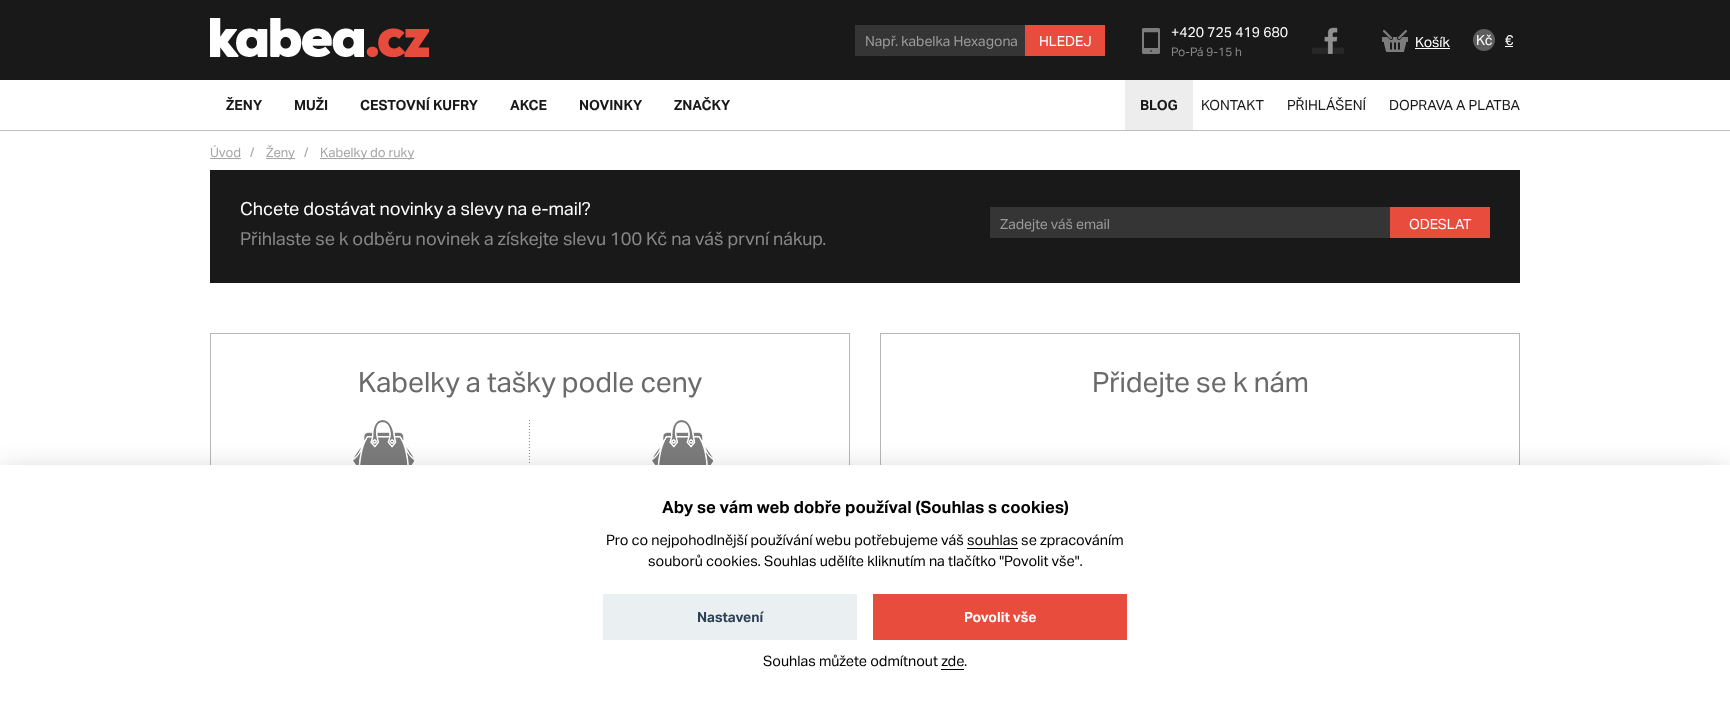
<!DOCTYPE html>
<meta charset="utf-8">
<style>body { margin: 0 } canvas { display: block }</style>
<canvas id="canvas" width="1730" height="704"></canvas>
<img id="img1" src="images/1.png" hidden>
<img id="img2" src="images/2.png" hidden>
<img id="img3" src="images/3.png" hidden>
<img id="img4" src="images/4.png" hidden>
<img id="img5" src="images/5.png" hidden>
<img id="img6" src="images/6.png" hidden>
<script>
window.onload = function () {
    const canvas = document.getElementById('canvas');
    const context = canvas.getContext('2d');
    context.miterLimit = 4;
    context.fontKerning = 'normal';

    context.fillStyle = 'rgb(255, 255, 255)';
    context.fillRect(0, 0, 1730, 704);
    context.fillStyle = 'rgb(25, 25, 25)';
    context.fillRect(0, 0, 1730, 80);
    context.drawImage(document.getElementById('img1'), 210, 18, 219, 39);
    context.fillStyle = 'rgb(53, 53, 53)';
    context.fillRect(855, 25, 170, 31);
    context.fillStyle = 'rgb(231, 76, 60)';
    context.fillRect(1025, 25, 80, 31);
    context.drawImage(document.getElementById('img2'), 1141, 28, 19, 26);
    context.drawImage(document.getElementById('img3'), 1312, 27, 32, 27);
    context.drawImage(document.getElementById('img4'), 1382, 30, 26, 22);
    context.fillStyle = 'rgb(255, 255, 255)';
    context.fillRect(1415, 48, 35, 1);
    context.fillStyle = 'rgb(94, 94, 94)';
    context.beginPath();
    context.arc(1484, 40, 11, 0, 2 * Math.PI);
    context.fill();
    context.fillStyle = 'rgb(255, 255, 255)';
    context.fillRect(1505, 46, 8, 1);
    context.fillStyle = 'rgb(189, 189, 189)';
    context.fillRect(0, 130, 1730, 1);
    context.fillStyle = 'rgb(237, 237, 237)';
    context.fillRect(1125, 80, 68, 50);
    context.fillStyle = 'rgb(166, 166, 166)';
    context.fillRect(210, 158, 31, 1);
    context.fillRect(266, 158, 29, 1);
    context.fillRect(320, 158, 94, 1);
    context.fillStyle = 'rgb(25, 25, 25)';
    context.fillRect(210, 170, 1310, 113);
    context.fillStyle = 'rgb(53, 53, 53)';
    context.fillRect(990, 207, 400, 31);
    context.fillStyle = 'rgb(231, 76, 60)';
    context.fillRect(1390, 207, 100, 31);
    context.strokeStyle = 'rgb(183, 183, 183)';
    context.strokeRect(210.5, 333.5, 639, 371);
    context.drawImage(document.getElementById('img5'), 529, 420, 1, 43);
    context.drawImage(document.getElementById('img6'), 353, 420, 61, 45);
    context.drawImage(document.getElementById('img6'), 652, 420, 61, 45);
    context.strokeRect(880.5, 333.5, 639, 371);
    context.fillStyle = 'rgba(2, 2, 3, 0.28)';
    context.filter = 'blur(15px)';
    context.beginPath();
    context.rect(0, 475, 1730, 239);
    context.fill();
    context.filter = 'none';
    context.fillStyle = 'rgb(255, 255, 255)';
    context.fillRect(0, 465, 1730, 239);
    context.fillStyle = 'rgb(0, 0, 0)';
    context.fillRect(967, 548, 51, 1);
    context.fillStyle = 'rgb(234, 239, 242)';
    context.fillRect(603, 594, 254, 46);
    context.fillStyle = 'rgb(231, 76, 60)';
    context.fillRect(873, 594, 254, 46);
    context.fillStyle = 'rgb(0, 0, 0)';
    context.fillRect(941, 669, 23, 1);
    context.font = '14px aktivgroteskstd';
    context.fillStyle = 'rgb(154, 154, 154)';
    context.fillText('Např. kabelka Hexagona', 865, 46);
    context.fillStyle = 'rgb(255, 255, 255)';
    context.fillText('HLEDEJ', 1039, 46);
    context.fillText('+420 725 419 680', 1171, 37);
    context.font = '12px aktivgroteskstd';
    context.fillStyle = 'rgb(135, 135, 135)';
    context.fillText('Po-Pá 9-15 h', 1171, 56);
    context.font = '14px aktivgroteskstd';
    context.fillStyle = 'rgb(255, 255, 255)';
    context.fillText('Košík', 1415, 47);
    context.fillText('Kč', 1476, 45);
    context.fillText('€', 1505, 45);
    context.font = 'bold 14px aktivgroteskstd';
    context.fillStyle = 'rgb(25, 25, 25)';
    context.fillText('ŽENY', 226, 110);
    context.fillText('MUŽI', 294, 110);
    context.fillText('CESTOVNÍ KUFRY', 360, 110);
    context.fillText('AKCE', 510, 110);
    context.fillText('NOVINKY', 579, 110);
    context.fillText('ZNAČKY', 674, 110);
    context.fillText('BLOG', 1140, 110);
    context.font = '14px aktivgroteskstd';
    context.fillText('KONTAKT', 1201, 110);
    context.fillText('PŘIHLÁŠENÍ', 1287, 110);
    context.fillText('DOPRAVA A PLATBA', 1389, 110);
    context.font = '13px aktivgroteskstd';
    context.fillStyle = 'rgb(166, 166, 166)';
    context.fillText('Úvod', 210, 157);
    context.fillText('/', 250, 157);
    context.fillText('Ženy', 266, 157);
    context.fillText('/', 304, 157);
    context.fillText('Kabelky do ruky', 320, 157);
    context.font = '18px aktivgroteskstd';
    context.fillStyle = 'rgb(255, 255, 255)';
    context.fillText('Chcete dostávat novinky a slevy na e-mail?', 240, 215);
    context.fillStyle = 'rgb(135, 135, 135)';
    context.fillText('Přihlaste se k odběru novinek a získejte slevu 100 Kč na váš první nákup.', 240, 245);
    context.font = '14px aktivgroteskstd';
    context.fillStyle = 'rgb(154, 154, 154)';
    context.fillText('Zadejte váš email', 1000, 229);
    context.fillStyle = 'rgb(255, 255, 255)';
    context.fillText('ODESLAT', 1409, 229);
    context.font = '28px aktivgroteskstd';
    context.fillStyle = 'rgb(106, 106, 106)';
    context.fillText('Kabelky a tašky podle ceny', 358, 392);
    context.fillText('Přidejte se k nám', 1092, 392);
    context.font = 'bold 16.8px aktivgroteskstd';
    context.fillStyle = 'rgb(0, 0, 0)';
    context.fillText('Aby se vám web dobře používal (Souhlas s cookies)', 662, 513);
    context.font = '14.4px aktivgroteskstd';
    context.fillText('Pro co nejpohodlnější používání webu potřebujeme váš souhlas se zpracováním', 606, 545);
    context.fillText('souborů cookies. Souhlas udělíte kliknutím na tlačítko "Povolit vše".', 648, 566);
    context.font = 'bold 14px aktivgroteskstd';
    context.fillStyle = 'rgb(45, 65, 86)';
    context.fillText('Nastavení', 697, 622);
    context.fillStyle = 'rgb(255, 255, 255)';
    context.fillText('Povolit vše', 964, 622);
    context.font = '14.4px aktivgroteskstd';
    context.fillStyle = 'rgb(0, 0, 0)';
    context.fillText('Souhlas můžete odmítnout zde', 763, 666);
    context.fillText('.', 964, 666);
};
</script>
